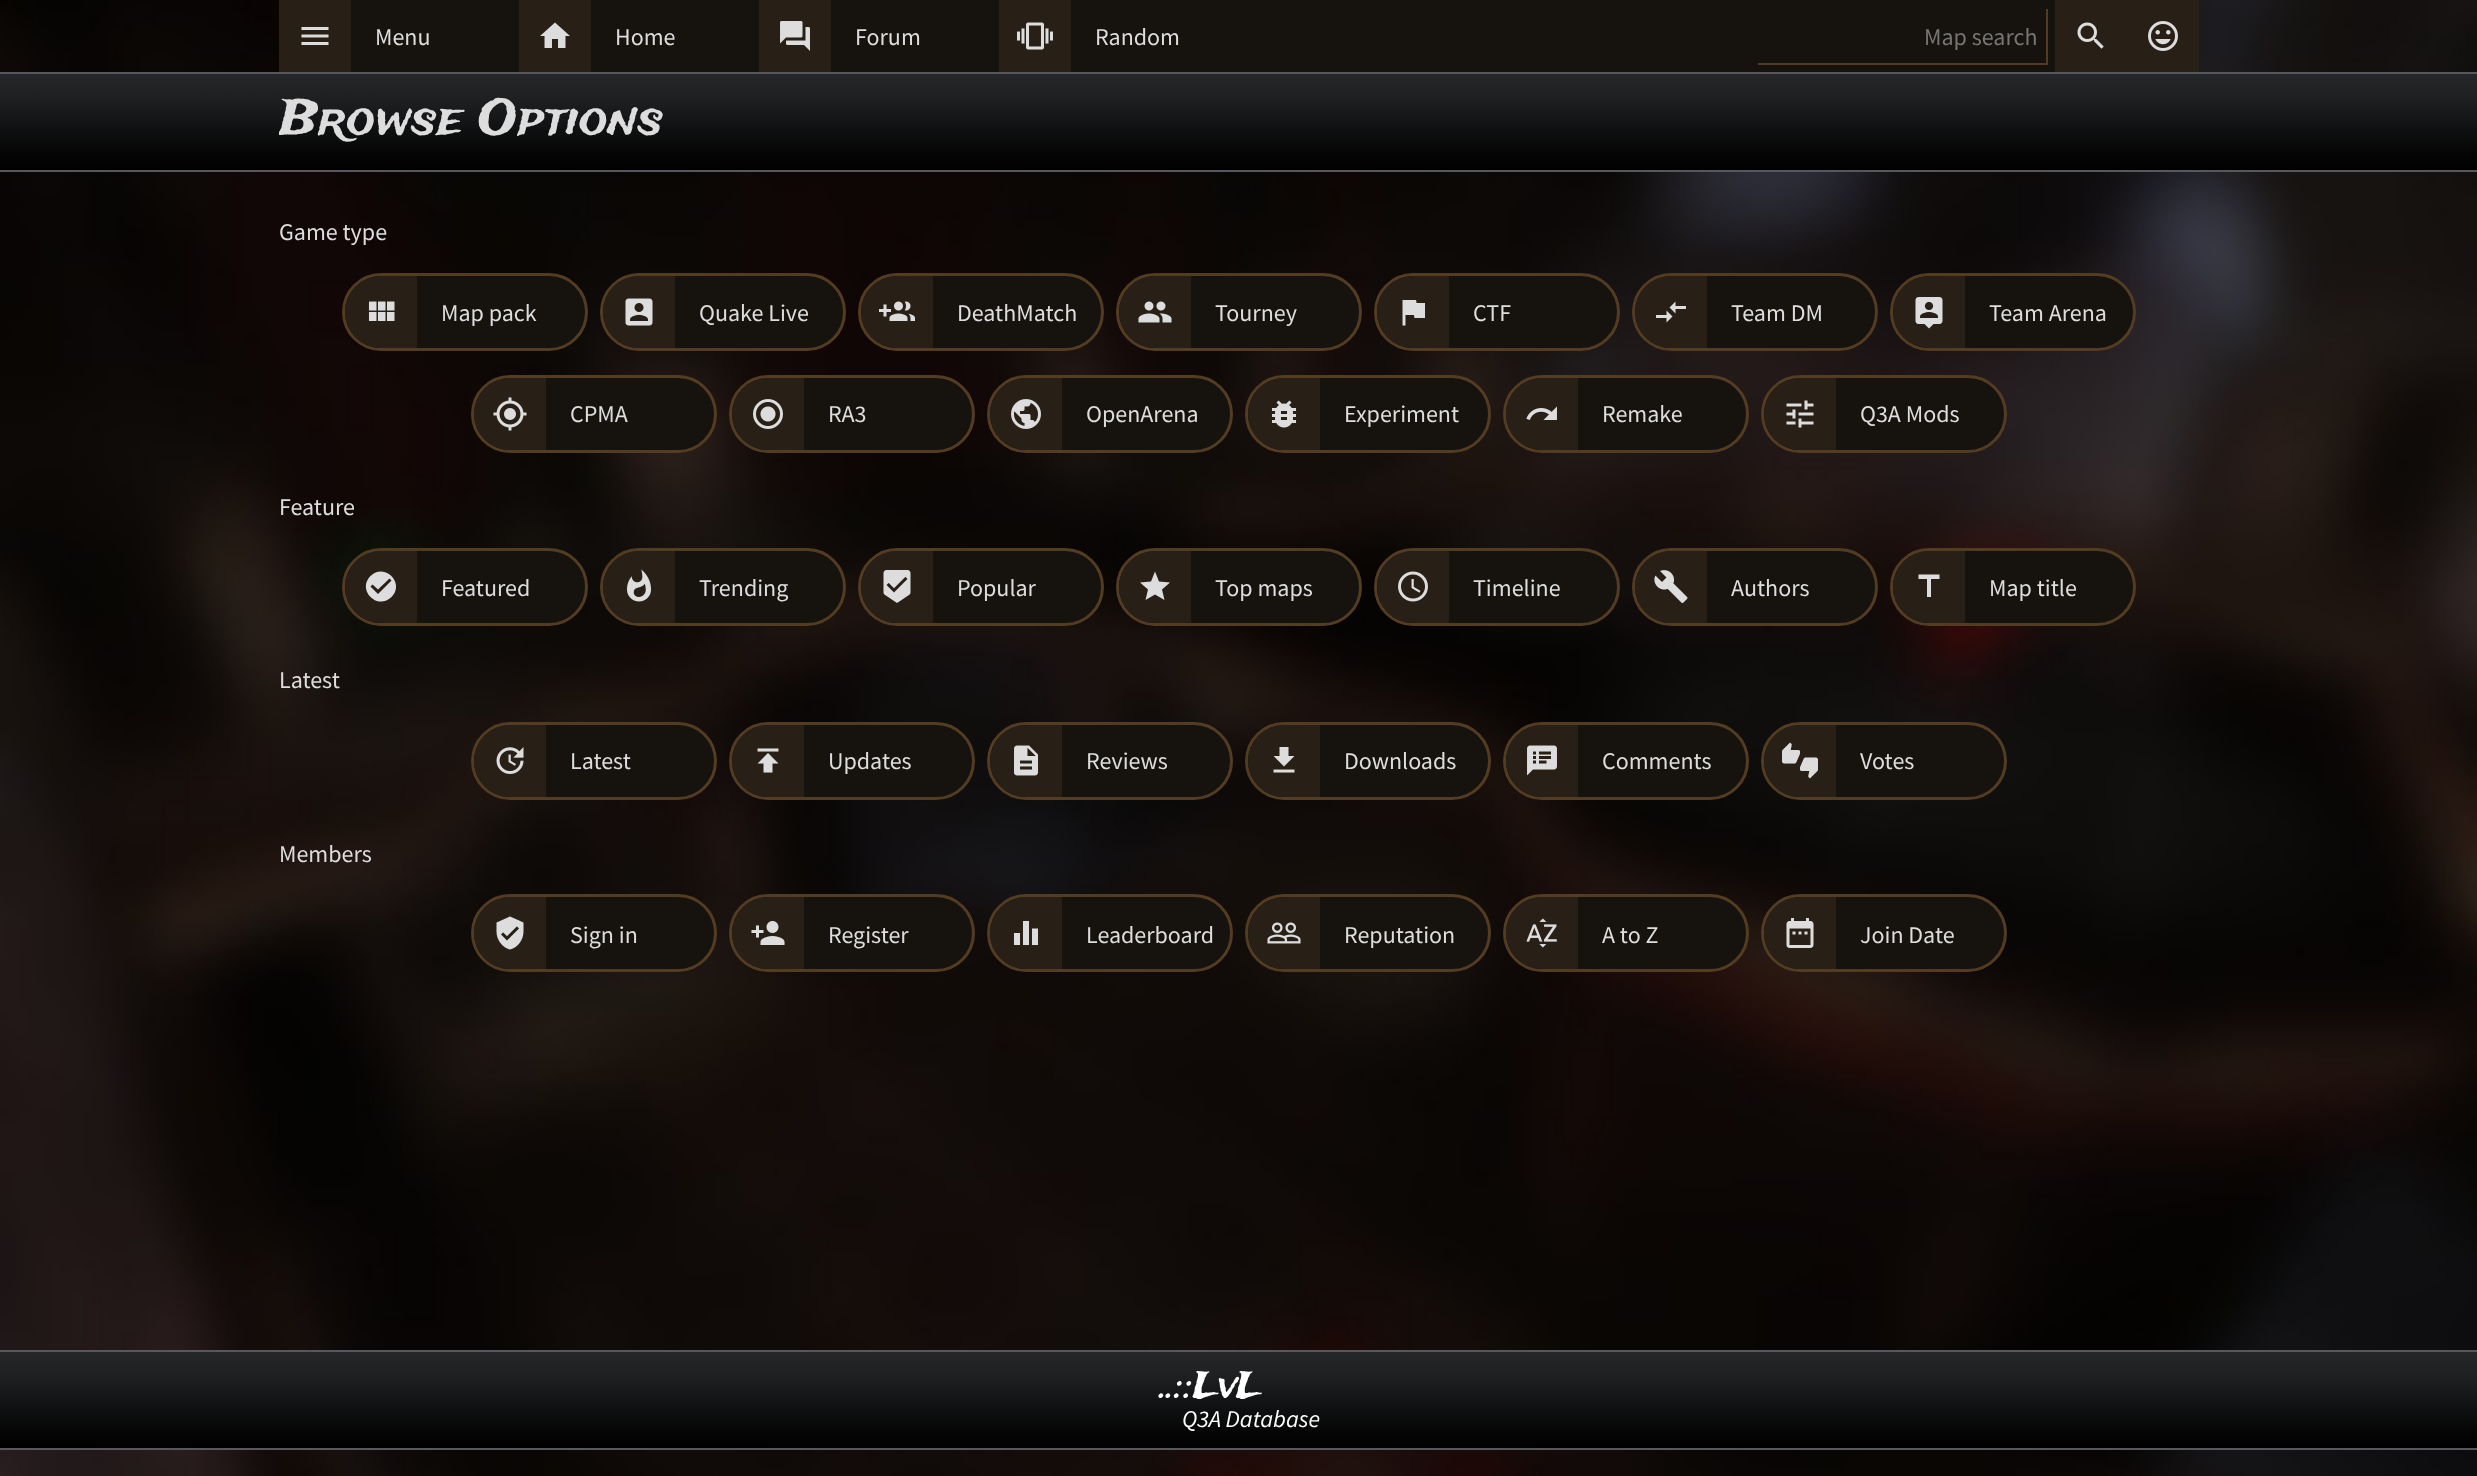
<!DOCTYPE html>
<meta charset="utf-8">
<style>body { margin: 0 } canvas { display: block }</style>
<canvas id="canvas" width="2477" height="1476"></canvas>
<img id="img1" src="images/1.png" hidden>
<img id="img2" src="images/2.png" hidden>
<img id="img3" src="images/3.png" hidden>
<img id="img4" src="images/4.png" hidden>
<img id="img5" src="images/5.png" hidden>
<img id="img6" src="images/6.png" hidden>
<img id="img7" src="images/7.png" hidden>
<img id="img8" src="images/8.png" hidden>
<img id="img9" src="images/9.png" hidden>
<img id="img10" src="images/10.png" hidden>
<img id="img11" src="images/11.png" hidden>
<img id="img12" src="images/12.png" hidden>
<img id="img13" src="images/13.png" hidden>
<img id="img14" src="images/14.png" hidden>
<img id="img15" src="images/15.png" hidden>
<img id="img16" src="images/16.png" hidden>
<img id="img17" src="images/17.png" hidden>
<img id="img18" src="images/18.png" hidden>
<img id="img19" src="images/19.png" hidden>
<img id="img20" src="images/20.png" hidden>
<img id="img21" src="images/21.png" hidden>
<img id="img22" src="images/22.png" hidden>
<img id="img23" src="images/23.png" hidden>
<img id="img24" src="images/24.png" hidden>
<img id="img25" src="images/25.png" hidden>
<img id="img26" src="images/26.png" hidden>
<img id="img27" src="images/27.png" hidden>
<img id="img28" src="images/28.png" hidden>
<img id="img29" src="images/29.png" hidden>
<img id="img30" src="images/30.png" hidden>
<img id="img31" src="images/31.png" hidden>
<img id="img32" src="images/32.png" hidden>
<img id="img33" src="images/33.png" hidden>
<img id="img34" src="images/34.png" hidden>
<img id="img35" src="images/35.png" hidden>
<img id="img36" src="images/36.png" hidden>
<img id="img37" src="images/37.png" hidden>
<img id="img38" src="images/38.png" hidden>
<script>
window.onload = function () {
    const canvas = document.getElementById('canvas');
    const context = canvas.getContext('2d');
    context.miterLimit = 4;
    context.fontKerning = 'normal';

    context.fillStyle = 'rgb(255, 255, 255)';
    context.fillRect(0, 0, 2477, 1476);
    context.drawImage(document.getElementById('img1'), 0, 0, 2477, 1476);
    context.fillStyle = 'rgb(22, 19, 15)';
    context.fillRect(351, 0, 1704, 72);
    context.fillStyle = 'rgb(40, 32, 22)';
    context.fillRect(279, 0, 72, 72);
    context.drawImage(document.getElementById('img2'), 301, 27, 28, 18);
    context.fillRect(519, 0, 72, 72);
    context.drawImage(document.getElementById('img3'), 540, 22, 30, 26);
    context.fillRect(759, 0, 72, 72);
    context.drawImage(document.getElementById('img4'), 780, 21, 30, 30);
    context.fillRect(999, 0, 72, 72);
    context.drawImage(document.getElementById('img5'), 1017, 22, 36, 28);
    context.fillStyle = 'rgb(84, 60, 34)';
    context.fillRect(2046, 9, 2, 56);
    context.fillRect(1758, 63, 290, 2);
    context.fillStyle = 'rgb(40, 32, 22)';
    context.fillRect(2055, 0, 144, 72);
    context.drawImage(document.getElementById('img6'), 2077, 22, 27, 27);
    context.drawImage(document.getElementById('img7'), 2148, 21, 30, 30);
    context.drawImage(document.getElementById('img8'), 0, 74, 2477, 96);
    context.fillStyle = 'rgb(86, 88, 93)';
    context.fillRect(0, 72, 2477, 2);
    context.fillRect(0, 170, 2477, 2);
    context.fillStyle = 'rgb(22, 19, 15)';
    context.beginPath();
    context.roundRect(343.5, 274.5, 243, 75, 37.5);
    context.fill();
    context.strokeStyle = 'rgb(84, 60, 34)';
    context.lineWidth = 3;
    context.stroke();
    context.fillStyle = 'rgb(40, 32, 22)';
    context.beginPath();
    context.roundRect(345, 276, 72, 72, [36, 0, 0, 36]);
    context.fill();
    context.drawImage(document.getElementById('img9'), 368, 301, 27, 20);
    context.fillStyle = 'rgb(22, 19, 15)';
    context.beginPath();
    context.roundRect(601.5, 274.5, 243, 75, 37.5);
    context.fill();
    context.stroke();
    context.fillStyle = 'rgb(40, 32, 22)';
    context.beginPath();
    context.roundRect(603, 276, 72, 72, [36, 0, 0, 36]);
    context.fill();
    context.drawImage(document.getElementById('img10'), 625, 298, 28, 28);
    context.fillStyle = 'rgb(22, 19, 15)';
    context.beginPath();
    context.roundRect(859.5, 274.5, 243, 75, 37.5);
    context.fill();
    context.stroke();
    context.fillStyle = 'rgb(40, 32, 22)';
    context.beginPath();
    context.roundRect(861, 276, 72, 72, [36, 0, 0, 36]);
    context.fill();
    context.drawImage(document.getElementById('img11'), 879, 301, 36, 20);
    context.fillStyle = 'rgb(22, 19, 15)';
    context.beginPath();
    context.roundRect(1117.5, 274.5, 243, 75, 37.5);
    context.fill();
    context.stroke();
    context.fillStyle = 'rgb(40, 32, 22)';
    context.beginPath();
    context.roundRect(1119, 276, 72, 72, [36, 0, 0, 36]);
    context.fill();
    context.drawImage(document.getElementById('img12'), 1138, 301, 34, 22);
    context.fillStyle = 'rgb(22, 19, 15)';
    context.beginPath();
    context.roundRect(1375.5, 274.5, 243, 75, 37.5);
    context.fill();
    context.stroke();
    context.fillStyle = 'rgb(40, 32, 22)';
    context.beginPath();
    context.roundRect(1377, 276, 72, 72, [36, 0, 0, 36]);
    context.fill();
    context.drawImage(document.getElementById('img13'), 1402, 300, 24, 26);
    context.fillStyle = 'rgb(22, 19, 15)';
    context.beginPath();
    context.roundRect(1633.5, 274.5, 243, 75, 37.5);
    context.fill();
    context.stroke();
    context.fillStyle = 'rgb(40, 32, 22)';
    context.beginPath();
    context.roundRect(1635, 276, 72, 72, [36, 0, 0, 36]);
    context.fill();
    context.drawImage(document.getElementById('img14'), 1656, 301, 30, 22);
    context.fillStyle = 'rgb(22, 19, 15)';
    context.beginPath();
    context.roundRect(1891.5, 274.5, 243, 75, 37.5);
    context.fill();
    context.stroke();
    context.fillStyle = 'rgb(40, 32, 22)';
    context.beginPath();
    context.roundRect(1893, 276, 72, 72, [36, 0, 0, 36]);
    context.fill();
    context.drawImage(document.getElementById('img15'), 1915, 297, 28, 32);
    context.fillStyle = 'rgb(22, 19, 15)';
    context.beginPath();
    context.roundRect(472.5, 376.5, 243, 75, 37.5);
    context.fill();
    context.stroke();
    context.fillStyle = 'rgb(40, 32, 22)';
    context.beginPath();
    context.roundRect(474, 378, 72, 72, [36, 0, 0, 36]);
    context.fill();
    context.drawImage(document.getElementById('img16'), 493, 397, 34, 34);
    context.fillStyle = 'rgb(22, 19, 15)';
    context.beginPath();
    context.roundRect(730.5, 376.5, 243, 75, 37.5);
    context.fill();
    context.stroke();
    context.fillStyle = 'rgb(40, 32, 22)';
    context.beginPath();
    context.roundRect(732, 378, 72, 72, [36, 0, 0, 36]);
    context.fill();
    context.drawImage(document.getElementById('img17'), 753, 399, 30, 30);
    context.fillStyle = 'rgb(22, 19, 15)';
    context.beginPath();
    context.roundRect(988.5, 376.5, 243, 75, 37.5);
    context.fill();
    context.stroke();
    context.fillStyle = 'rgb(40, 32, 22)';
    context.beginPath();
    context.roundRect(990, 378, 72, 72, [36, 0, 0, 36]);
    context.fill();
    context.drawImage(document.getElementById('img18'), 1011, 399, 30, 30);
    context.fillStyle = 'rgb(22, 19, 15)';
    context.beginPath();
    context.roundRect(1246.5, 376.5, 243, 75, 37.5);
    context.fill();
    context.stroke();
    context.fillStyle = 'rgb(40, 32, 22)';
    context.beginPath();
    context.roundRect(1248, 378, 72, 72, [36, 0, 0, 36]);
    context.fill();
    context.drawImage(document.getElementById('img19'), 1271, 400, 26, 28);
    context.fillStyle = 'rgb(22, 19, 15)';
    context.beginPath();
    context.roundRect(1504.5, 376.5, 243, 75, 37.5);
    context.fill();
    context.stroke();
    context.fillStyle = 'rgb(40, 32, 22)';
    context.beginPath();
    context.roundRect(1506, 378, 72, 72, [36, 0, 0, 36]);
    context.fill();
    context.drawImage(document.getElementById('img20'), 1526, 406, 31, 14);
    context.fillStyle = 'rgb(22, 19, 15)';
    context.beginPath();
    context.roundRect(1762.5, 376.5, 243, 75, 37.5);
    context.fill();
    context.stroke();
    context.fillStyle = 'rgb(40, 32, 22)';
    context.beginPath();
    context.roundRect(1764, 378, 72, 72, [36, 0, 0, 36]);
    context.fill();
    context.drawImage(document.getElementById('img21'), 1786, 400, 28, 28);
    context.fillStyle = 'rgb(22, 19, 15)';
    context.beginPath();
    context.roundRect(343.5, 549.5, 243, 75, 37.5);
    context.fill();
    context.stroke();
    context.fillStyle = 'rgb(40, 32, 22)';
    context.beginPath();
    context.roundRect(345, 551, 72, 72, [36, 0, 0, 36]);
    context.fill();
    context.fillStyle = 'rgb(221, 221, 221)';
    context.beginPath();
    context.moveTo(378, 594);
    context.lineTo(391.5, 580.5);
    context.lineTo(389.5, 578.5);
    context.lineTo(378, 589.5);
    context.lineTo(372.5, 584.5);
    context.lineTo(370.5, 586.5);
    context.closePath();
    context.moveTo(370.5, 576);
    context.bezierCurveTo(384.5, 562, 405.5, 583, 391.5, 597);
    context.bezierCurveTo(377.5, 611, 356.5, 590, 370.5, 576);
    context.closePath();
    context.fill();
    context.fillStyle = 'rgb(22, 19, 15)';
    context.beginPath();
    context.roundRect(601.5, 549.5, 243, 75, 37.5);
    context.fill();
    context.stroke();
    context.fillStyle = 'rgb(40, 32, 22)';
    context.beginPath();
    context.roundRect(603, 551, 72, 72, [36, 0, 0, 36]);
    context.fill();
    context.drawImage(document.getElementById('img22'), 627, 569, 24, 33);
    context.fillStyle = 'rgb(22, 19, 15)';
    context.beginPath();
    context.roundRect(859.5, 549.5, 243, 75, 37.5);
    context.fill();
    context.stroke();
    context.fillStyle = 'rgb(40, 32, 22)';
    context.beginPath();
    context.roundRect(861, 551, 72, 72, [36, 0, 0, 36]);
    context.fill();
    context.drawImage(document.getElementById('img23'), 883, 570, 28, 33);
    context.fillStyle = 'rgb(22, 19, 15)';
    context.beginPath();
    context.roundRect(1117.5, 549.5, 243, 75, 37.5);
    context.fill();
    context.stroke();
    context.fillStyle = 'rgb(40, 32, 22)';
    context.beginPath();
    context.roundRect(1119, 551, 72, 72, [36, 0, 0, 36]);
    context.fill();
    context.fillStyle = 'rgb(221, 221, 221)';
    context.beginPath();
    context.moveTo(1155, 594.5);
    context.lineTo(1145.5, 600);
    context.lineTo(1148, 589.5);
    context.lineTo(1140, 582.5);
    context.lineTo(1151, 581.5);
    context.lineTo(1155, 571.5);
    context.lineTo(1159, 581.5);
    context.lineTo(1170, 582.5);
    context.lineTo(1162, 589.5);
    context.lineTo(1164.5, 600);
    context.closePath();
    context.fill();
    context.fillStyle = 'rgb(22, 19, 15)';
    context.beginPath();
    context.roundRect(1375.5, 549.5, 243, 75, 37.5);
    context.fill();
    context.stroke();
    context.fillStyle = 'rgb(40, 32, 22)';
    context.beginPath();
    context.roundRect(1377, 551, 72, 72, [36, 0, 0, 36]);
    context.fill();
    context.drawImage(document.getElementById('img24'), 1398, 571, 30, 31);
    context.fillStyle = 'rgb(22, 19, 15)';
    context.beginPath();
    context.roundRect(1633.5, 549.5, 243, 75, 37.5);
    context.fill();
    context.stroke();
    context.fillStyle = 'rgb(40, 32, 22)';
    context.beginPath();
    context.roundRect(1635, 551, 72, 72, [36, 0, 0, 36]);
    context.fill();
    context.drawImage(document.getElementById('img25'), 1654, 570, 34, 33);
    context.fillStyle = 'rgb(22, 19, 15)';
    context.beginPath();
    context.roundRect(1891.5, 549.5, 243, 75, 37.5);
    context.fill();
    context.stroke();
    context.fillStyle = 'rgb(40, 32, 22)';
    context.beginPath();
    context.roundRect(1893, 551, 72, 72, [36, 0, 0, 36]);
    context.fill();
    context.fillStyle = 'rgb(221, 221, 221)';
    context.beginPath();
    context.moveTo(1918.5, 574.5);
    context.lineTo(1939.5, 574.5);
    context.lineTo(1939.5, 579);
    context.lineTo(1931, 579);
    context.lineTo(1931, 597);
    context.lineTo(1927, 597);
    context.lineTo(1927, 579);
    context.lineTo(1918.5, 579);
    context.closePath();
    context.fill();
    context.fillStyle = 'rgb(22, 19, 15)';
    context.beginPath();
    context.roundRect(472.5, 723.5, 243, 75, 37.5);
    context.fill();
    context.stroke();
    context.fillStyle = 'rgb(40, 32, 22)';
    context.beginPath();
    context.roundRect(474, 725, 72, 72, [36, 0, 0, 36]);
    context.fill();
    context.drawImage(document.getElementById('img26'), 496, 747, 28, 27);
    context.fillStyle = 'rgb(22, 19, 15)';
    context.beginPath();
    context.roundRect(730.5, 723.5, 243, 75, 37.5);
    context.fill();
    context.stroke();
    context.fillStyle = 'rgb(40, 32, 22)';
    context.beginPath();
    context.roundRect(732, 725, 72, 72, [36, 0, 0, 36]);
    context.fill();
    context.drawImage(document.getElementById('img27'), 757, 748, 22, 25);
    context.fillStyle = 'rgb(22, 19, 15)';
    context.beginPath();
    context.roundRect(988.5, 723.5, 243, 75, 37.5);
    context.fill();
    context.stroke();
    context.fillStyle = 'rgb(40, 32, 22)';
    context.beginPath();
    context.roundRect(990, 725, 72, 72, [36, 0, 0, 36]);
    context.fill();
    context.drawImage(document.getElementById('img28'), 1014, 745, 25, 31);
    context.fillStyle = 'rgb(22, 19, 15)';
    context.beginPath();
    context.roundRect(1246.5, 723.5, 243, 75, 37.5);
    context.fill();
    context.stroke();
    context.fillStyle = 'rgb(40, 32, 22)';
    context.beginPath();
    context.roundRect(1248, 725, 72, 72, [36, 0, 0, 36]);
    context.fill();
    context.drawImage(document.getElementById('img29'), 1273, 747, 22, 26);
    context.fillStyle = 'rgb(22, 19, 15)';
    context.beginPath();
    context.roundRect(1504.5, 723.5, 243, 75, 37.5);
    context.fill();
    context.stroke();
    context.fillStyle = 'rgb(40, 32, 22)';
    context.beginPath();
    context.roundRect(1506, 725, 72, 72, [36, 0, 0, 36]);
    context.fill();
    context.drawImage(document.getElementById('img30'), 1527, 745, 30, 31);
    context.fillStyle = 'rgb(22, 19, 15)';
    context.beginPath();
    context.roundRect(1762.5, 723.5, 243, 75, 37.5);
    context.fill();
    context.stroke();
    context.fillStyle = 'rgb(40, 32, 22)';
    context.beginPath();
    context.roundRect(1764, 725, 72, 72, [36, 0, 0, 36]);
    context.fill();
    context.drawImage(document.getElementById('img31'), 1782, 742, 36, 37);
    context.fillStyle = 'rgb(22, 19, 15)';
    context.beginPath();
    context.roundRect(472.5, 895.5, 243, 75, 37.5);
    context.fill();
    context.stroke();
    context.fillStyle = 'rgb(40, 32, 22)';
    context.beginPath();
    context.roundRect(474, 897, 72, 72, [36, 0, 0, 36]);
    context.fill();
    context.drawImage(document.getElementById('img32'), 496, 916, 28, 34);
    context.fillStyle = 'rgb(22, 19, 15)';
    context.beginPath();
    context.roundRect(730.5, 895.5, 243, 75, 37.5);
    context.fill();
    context.stroke();
    context.fillStyle = 'rgb(40, 32, 22)';
    context.beginPath();
    context.roundRect(732, 897, 72, 72, [36, 0, 0, 36]);
    context.fill();
    context.drawImage(document.getElementById('img33'), 751, 921, 34, 24);
    context.fillStyle = 'rgb(22, 19, 15)';
    context.beginPath();
    context.roundRect(988.5, 895.5, 243, 75, 37.5);
    context.fill();
    context.stroke();
    context.fillStyle = 'rgb(40, 32, 22)';
    context.beginPath();
    context.roundRect(990, 897, 72, 72, [36, 0, 0, 36]);
    context.fill();
    context.drawImage(document.getElementById('img34'), 1013, 920, 26, 26);
    context.fillStyle = 'rgb(22, 19, 15)';
    context.beginPath();
    context.roundRect(1246.5, 895.5, 243, 75, 37.5);
    context.fill();
    context.stroke();
    context.fillStyle = 'rgb(40, 32, 22)';
    context.beginPath();
    context.roundRect(1248, 897, 72, 72, [36, 0, 0, 36]);
    context.fill();
    context.drawImage(document.getElementById('img35'), 1267, 922, 34, 22);
    context.fillStyle = 'rgb(22, 19, 15)';
    context.beginPath();
    context.roundRect(1504.5, 895.5, 243, 75, 37.5);
    context.fill();
    context.stroke();
    context.fillStyle = 'rgb(40, 32, 22)';
    context.beginPath();
    context.roundRect(1506, 897, 72, 72, [36, 0, 0, 36]);
    context.fill();
    context.drawImage(document.getElementById('img36'), 1526, 918, 31, 30);
    context.fillStyle = 'rgb(22, 19, 15)';
    context.beginPath();
    context.roundRect(1762.5, 895.5, 243, 75, 37.5);
    context.fill();
    context.stroke();
    context.fillStyle = 'rgb(40, 32, 22)';
    context.beginPath();
    context.roundRect(1764, 897, 72, 72, [36, 0, 0, 36]);
    context.fill();
    context.drawImage(document.getElementById('img37'), 1786, 918, 28, 30);
    context.drawImage(document.getElementById('img38'), 0, 1352, 2477, 96);
    context.fillStyle = 'rgb(86, 88, 93)';
    context.fillRect(0, 1350, 2477, 2);
    context.fillRect(0, 1448, 2477, 2);
    context.font = '24px Source Sans Pro';
    context.fillStyle = 'rgb(221, 221, 221)';
    context.fillText('Menu', 375, 45);
    context.fillText('Home', 615, 45);
    context.fillText('Forum', 855, 45);
    context.fillText('Random', 1095, 45);
    context.fillStyle = 'rgb(117, 117, 117)';
    context.fillText('Map search', 1924, 45);
    context.save();
    context.beginPath();
    context.rect(279, 74, 1920, 96);
    context.clip();
    context.font = '48px Trade Winds';
    context.fillStyle = 'rgb(221, 221, 221)';
    context.fillText('Browse Options', 279, 134);
    context.restore();
    context.fillStyle = 'rgb(221, 221, 221)';
    context.fillText('Game type', 279, 240);
    context.fillText('Map pack', 441, 321);
    context.fillText('Quake Live', 699, 321);
    context.fillText('DeathMatch', 957, 321);
    context.fillText('Tourney', 1215, 321);
    context.fillText('CTF', 1473, 321);
    context.fillText('Team DM', 1731, 321);
    context.fillText('Team Arena', 1989, 321);
    context.fillText('CPMA', 570, 422);
    context.fillText('RA3', 828, 422);
    context.fillText('OpenArena', 1086, 422);
    context.fillText('Experiment', 1344, 422);
    context.fillText('Remake', 1602, 422);
    context.fillText('Q3A Mods', 1860, 422);
    context.fillText('Feature', 279, 515);
    context.fillText('Featured', 441, 596);
    context.fillText('Trending', 699, 596);
    context.fillText('Popular', 957, 596);
    context.fillText('Top maps', 1215, 596);
    context.fillText('Timeline', 1473, 596);
    context.fillText('Authors', 1731, 596);
    context.fillText('Map title', 1989, 596);
    context.fillText('Latest', 279, 688);
    context.fillText('Latest', 570, 769);
    context.fillText('Updates', 828, 769);
    context.fillText('Reviews', 1086, 769);
    context.fillText('Downloads', 1344, 769);
    context.fillText('Comments', 1602, 769);
    context.fillText('Votes', 1860, 769);
    context.fillText('Members', 279, 862);
    context.fillText('Sign in', 570, 943);
    context.fillText('Register', 828, 943);
    context.fillText('Leaderboard', 1086, 943);
    context.fillText('Reputation', 1344, 943);
    context.fillText('A to Z', 1602, 943);
    context.fillText('Join Date', 1860, 943);
    context.font = '36px Trade Winds';
    context.fillStyle = 'rgb(255, 255, 255)';
    context.fillText('..::LvL', 1161, 1397);
    context.font = 'italic 24px Source Sans Pro';
    context.fillText('Q3A Database', 1182, 1427);
};
</script>
